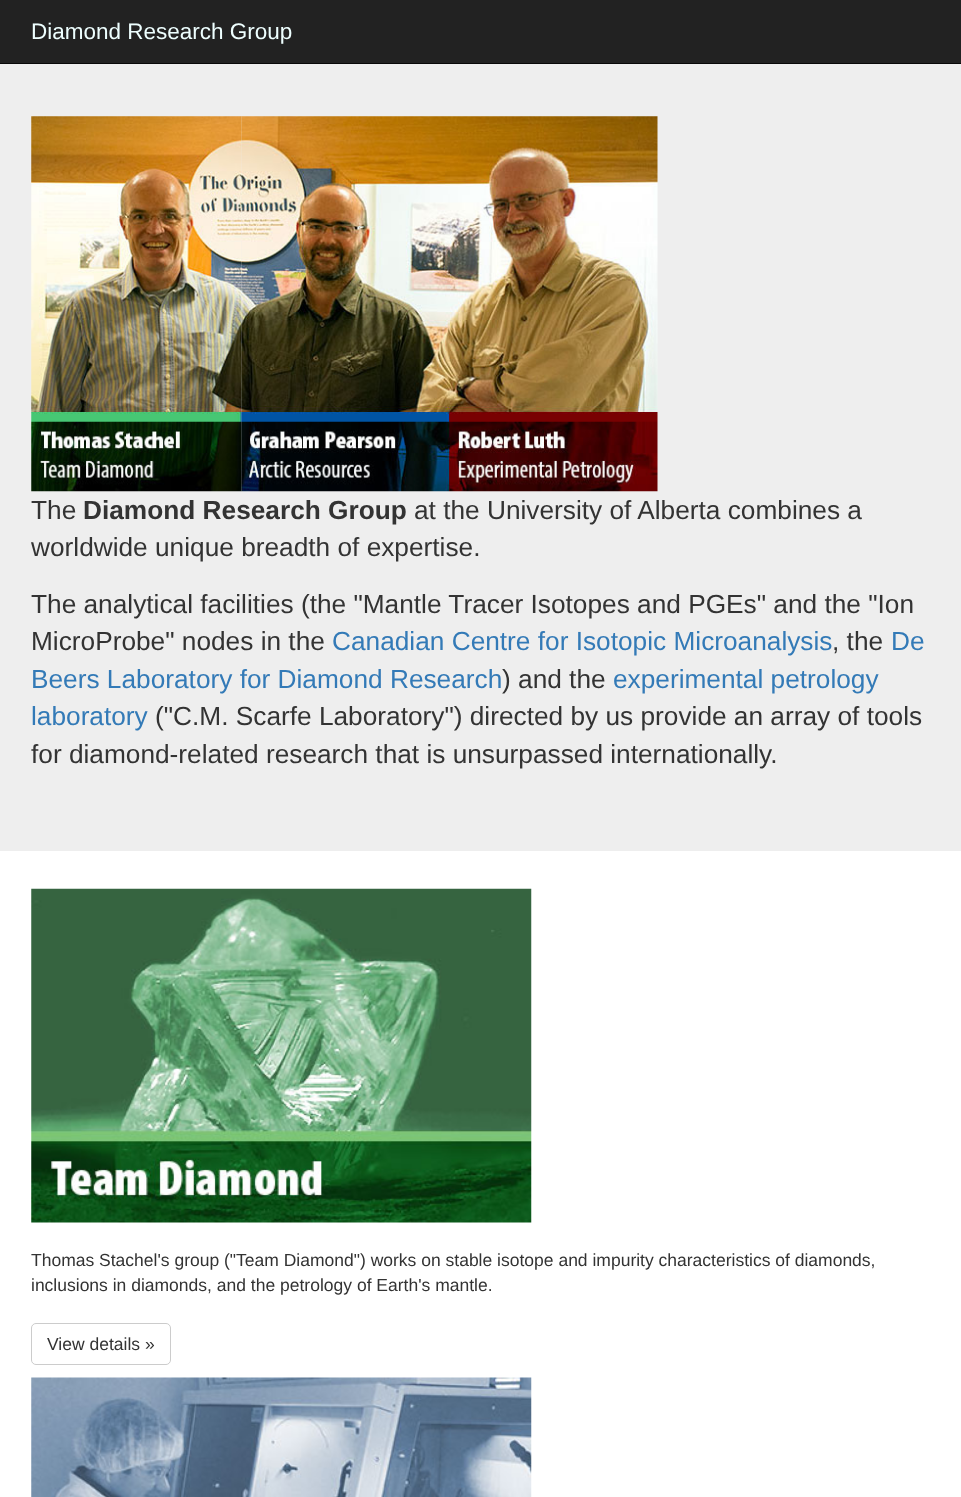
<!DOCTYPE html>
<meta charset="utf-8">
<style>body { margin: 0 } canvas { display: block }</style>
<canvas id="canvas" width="961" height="1497"></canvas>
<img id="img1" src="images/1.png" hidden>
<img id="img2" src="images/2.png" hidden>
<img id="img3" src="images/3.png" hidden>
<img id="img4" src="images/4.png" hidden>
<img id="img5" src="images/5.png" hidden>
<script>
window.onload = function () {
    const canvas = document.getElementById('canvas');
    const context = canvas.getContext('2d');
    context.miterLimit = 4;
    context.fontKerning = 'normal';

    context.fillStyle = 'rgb(255, 255, 255)';
    context.fillRect(0, 0, 961, 1497);
    context.fillStyle = 'rgb(34, 34, 34)';
    context.fillRect(0, 0, 961, 63);
    context.fillStyle = 'rgb(8, 8, 8)';
    context.fillRect(0, 63, 961, 1);
    context.fillStyle = 'rgb(238, 238, 238)';
    context.fillRect(0, 64, 961, 787);
    context.drawImage(document.getElementById('img1'), 31, 116, 211, 376);
    context.drawImage(document.getElementById('img2'), 241, 116, 209, 376);
    context.drawImage(document.getElementById('img3'), 450, 116, 208, 376);
    context.drawImage(document.getElementById('img4'), 31, 888, 501, 335);
    context.beginPath();
    context.roundRect(31.5, 1323.5, 139, 41, 4.5);
    context.strokeStyle = 'rgb(204, 204, 204)';
    context.stroke();
    context.drawImage(document.getElementById('img5'), 31, 1377, 501, 120);
    context.font = '22.5px Liberation Sans';
    context.fillStyle = 'rgb(238, 255, 255)';
    context.fillText('Diamond Research Group', 31, 39);
    context.font = '26.25px Liberation Sans';
    context.fillStyle = 'rgb(51, 51, 51)';
    context.fillText('The', 31, 519);
    context.font = 'bold 26.25px Liberation Sans';
    context.fillText('Diamond Research Group', 83, 519);
    context.font = '26.25px Liberation Sans';
    context.fillText('at the University of Alberta combines a', 414, 519);
    context.fillText('worldwide unique breadth of expertise.', 31, 556);
    context.fillText('The analytical facilities (the "Mantle Tracer Isotopes and PGEs" and the "Ion', 31, 613);
    context.fillText('MicroProbe" nodes in the', 31, 650);
    context.fillStyle = 'rgb(51, 122, 183)';
    context.fillText('Canadian Centre for Isotopic Microanalysis', 332, 650);
    context.fillStyle = 'rgb(51, 51, 51)';
    context.fillText(', the', 832, 650);
    context.fillStyle = 'rgb(51, 122, 183)';
    context.fillText('De', 891, 650);
    context.fillText('Beers Laboratory for Diamond Research', 31, 688);
    context.fillStyle = 'rgb(51, 51, 51)';
    context.fillText(') and the', 502, 688);
    context.fillStyle = 'rgb(51, 122, 183)';
    context.fillText('experimental petrology', 613, 688);
    context.fillText('laboratory', 31, 725);
    context.fillStyle = 'rgb(51, 51, 51)';
    context.fillText('("C.M. Scarfe Laboratory") directed by us provide an array of tools', 155, 725);
    context.fillText('for diamond-related research that is unsurpassed internationally.', 31, 763);
    context.font = '17.5px Liberation Sans';
    context.fillText('Thomas Stachel\'s group ("Team Diamond") works on stable isotope and impurity characteristics of diamonds,', 31, 1266);
    context.fillText('inclusions in diamonds, and the petrology of Earth\'s mantle.', 31, 1291);
    context.fillText('View details »', 47, 1350);
};
</script>
